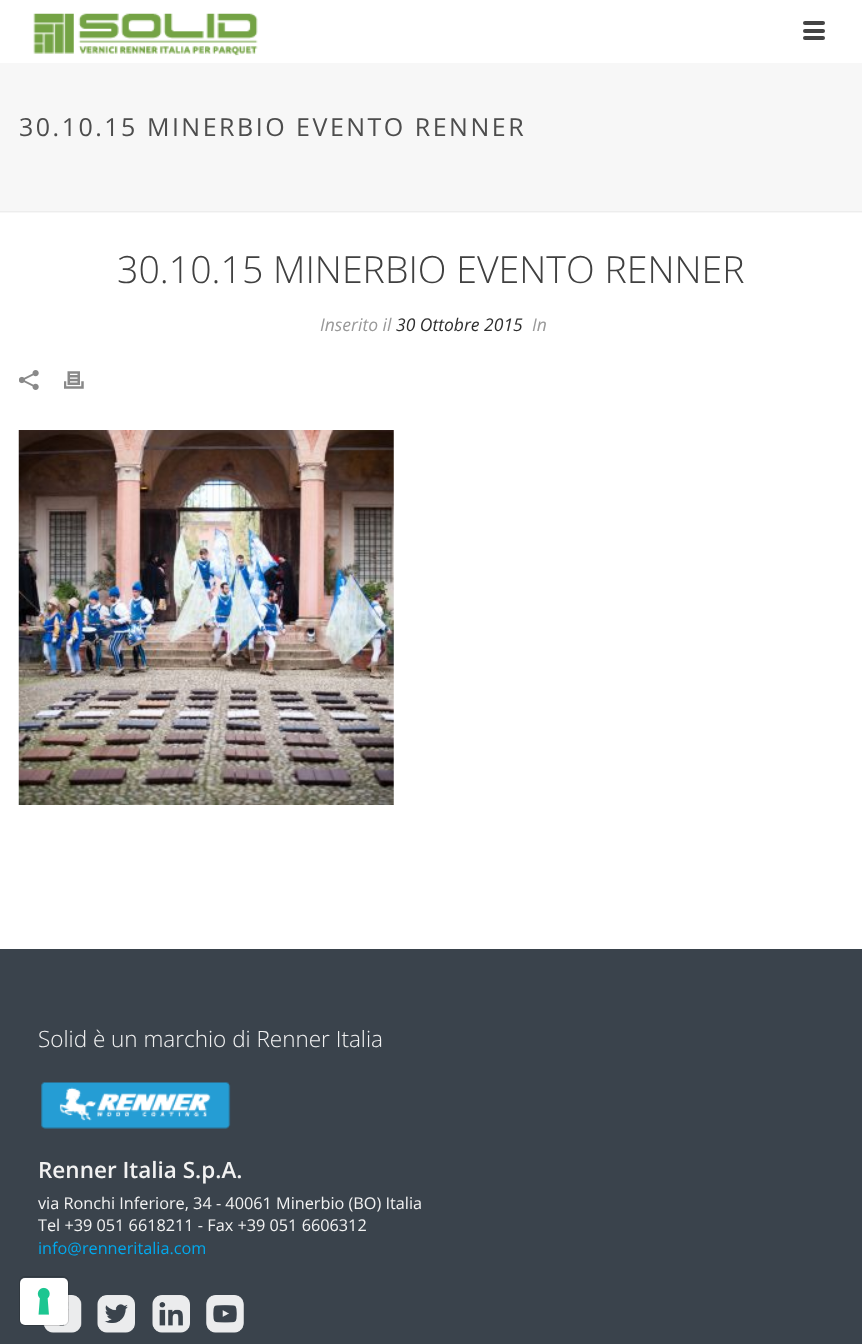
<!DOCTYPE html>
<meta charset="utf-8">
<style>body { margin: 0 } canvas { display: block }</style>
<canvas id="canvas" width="862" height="1344"></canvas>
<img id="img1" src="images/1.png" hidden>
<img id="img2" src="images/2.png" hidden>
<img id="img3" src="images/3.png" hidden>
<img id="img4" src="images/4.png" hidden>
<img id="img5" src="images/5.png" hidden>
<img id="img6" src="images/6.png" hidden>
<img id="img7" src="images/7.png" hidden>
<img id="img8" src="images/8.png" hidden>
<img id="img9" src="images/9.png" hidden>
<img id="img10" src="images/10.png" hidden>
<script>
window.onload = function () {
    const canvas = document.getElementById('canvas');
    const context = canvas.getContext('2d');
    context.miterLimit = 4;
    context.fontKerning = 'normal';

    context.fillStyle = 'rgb(255, 255, 255)';
    context.fillRect(0, 0, 862, 1344);
    context.fillStyle = 'rgb(247, 247, 247)';
    context.fillRect(0, 63, 862, 150);
    context.fillStyle = 'rgb(237, 237, 237)';
    context.fillRect(0, 211, 862, 1);
    context.drawImage(document.getElementById('img1'), 33, 13, 225, 43);
    context.fillStyle = 'rgb(68, 68, 68)';
    context.beginPath();
    context.roundRect(803, 21, 22, 4, 2);
    context.fill();
    context.beginPath();
    context.roundRect(803, 29, 22, 4, 2);
    context.fill();
    context.beginPath();
    context.roundRect(803, 36, 22, 4, 2);
    context.fill();
    context.drawImage(document.getElementById('img2'), 19, 370, 20, 20);
    context.drawImage(document.getElementById('img3'), 64, 371, 20, 18);
    context.drawImage(document.getElementById('img4'), 18, 430, 376, 375);
    context.fillStyle = 'rgb(58, 67, 76)';
    context.fillRect(0, 949, 862, 395);
    context.drawImage(document.getElementById('img5'), 41, 1082, 190, 47);
    context.drawImage(document.getElementById('img6'), 43, 1295, 39, 38);
    context.drawImage(document.getElementById('img7'), 97, 1295, 38, 38);
    context.drawImage(document.getElementById('img8'), 152, 1295, 38, 38);
    context.drawImage(document.getElementById('img9'), 206, 1295, 38, 38);
    context.beginPath();
    context.roundRect(19.5, 1276.5, 49, 49, 5.5);
    context.strokeStyle = 'rgba(0, 0, 0, 0.15)';
    context.stroke();
    context.fillStyle = 'rgb(255, 255, 255)';
    context.beginPath();
    context.roundRect(20, 1278, 48, 47, 5);
    context.fill();
    context.drawImage(document.getElementById('img10'), 37, 1287, 13, 28);
    context.letterSpacing = '2.5px';
    context.font = '25px Open Sans';
    context.fillStyle = 'rgb(77, 77, 77)';
    context.fillText('30.10.15 MINERBIO EVENTO RENNER', 19, 136);
    context.letterSpacing = '0px';
    context.font = '300 37.5px Open Sans';
    context.fillStyle = 'rgb(64, 64, 64)';
    context.fillText('30.10.15 MINERBIO EVENTO RENNER', 117, 283);
    context.font = 'italic 17.5px Open Sans';
    context.fillStyle = 'rgb(153, 153, 153)';
    context.fillText('Inserito il', 320, 331);
    context.fillStyle = 'rgb(46, 46, 46)';
    context.fillText('30 Ottobre 2015', 396, 331);
    context.fillStyle = 'rgb(153, 153, 153)';
    context.fillText('In', 532, 331);
    context.font = '300 22.5px Open Sans';
    context.fillStyle = 'rgb(242, 242, 242)';
    context.fillText('Solid è un marchio di Renner Italia', 38, 1047);
    context.font = '600 22.5px Open Sans';
    context.fillText('Renner Italia S.p.A.', 38, 1178);
    context.font = '16.25px Open Sans';
    context.fillText('via Ronchi Inferiore, 34 - 40061 Minerbio (BO) Italia', 38, 1209);
    context.fillText('Tel +39 051 6618211 - Fax +39 051 6606312', 38, 1231);
    context.fillStyle = 'rgb(0, 170, 239)';
    context.fillText('info@renneritalia.com', 38, 1254);
};
</script>
